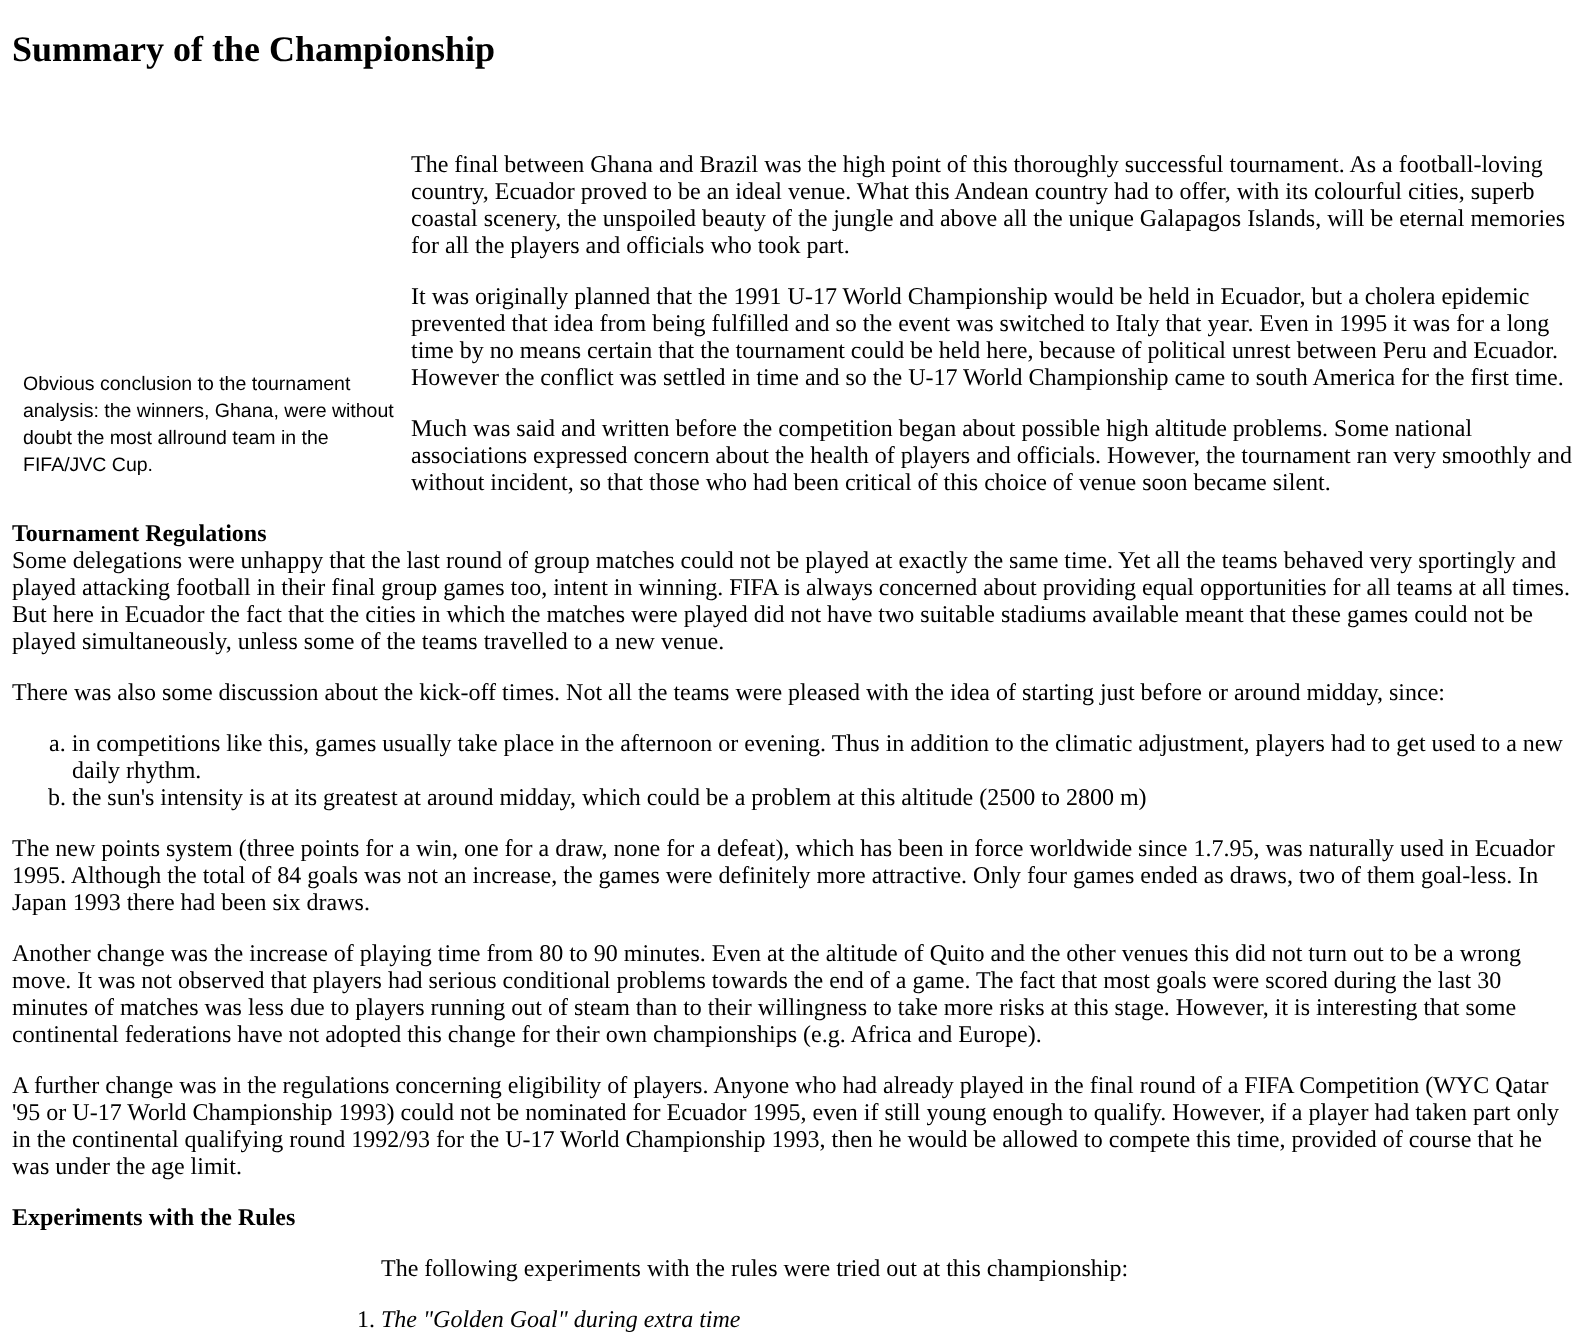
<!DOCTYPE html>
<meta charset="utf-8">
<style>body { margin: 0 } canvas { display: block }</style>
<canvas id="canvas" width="1590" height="1334"></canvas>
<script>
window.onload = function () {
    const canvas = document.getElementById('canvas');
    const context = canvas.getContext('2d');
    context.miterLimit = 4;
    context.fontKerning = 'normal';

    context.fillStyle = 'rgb(255, 255, 255)';
    context.fillRect(0, 0, 1590, 1334);
    context.font = 'bold 36px Liberation Serif';
    context.fillStyle = 'rgb(0, 0, 0)';
    context.fillText('Summary of the Championship', 12, 61);
    context.font = '24px Liberation Serif';
    context.fillText('The final between Ghana and Brazil was the high point of this thoroughly successful tournament. As a football-loving', 411, 172);
    context.fillText('country, Ecuador proved to be an ideal venue. What this Andean country had to offer, with its colourful cities, superb', 411, 199);
    context.fillText('coastal scenery, the unspoiled beauty of the jungle and above all the unique Galapagos Islands, will be eternal memories', 411, 226);
    context.fillText('for all the players and officials who took part.', 411, 253);
    context.fillText('It was originally planned that the 1991 U-17 World Championship would be held in Ecuador, but a cholera epidemic', 411, 304);
    context.fillText('prevented that idea from being fulfilled and so the event was switched to Italy that year. Even in 1995 it was for a long', 411, 331);
    context.fillText('time by no means certain that the tournament could be held here, because of political unrest between Peru and Ecuador.', 411, 358);
    context.fillText('However the conflict was settled in time and so the U-17 World Championship came to south America for the first time.', 411, 385);
    context.font = '19.5px Liberation Sans';
    context.fillText('Obvious conclusion to the tournament', 23, 390);
    context.fillText('analysis: the winners, Ghana, were without', 23, 417);
    context.fillText('doubt the most allround team in the', 23, 444);
    context.fillText('FIFA/JVC Cup.', 23, 471);
    context.font = '24px Liberation Serif';
    context.fillText('Much was said and written before the competition began about possible high altitude problems. Some national', 411, 436);
    context.fillText('associations expressed concern about the health of players and officials. However, the tournament ran very smoothly and', 411, 463);
    context.fillText('without incident, so that those who had been critical of this choice of venue soon became silent.', 411, 490);
    context.font = 'bold 24px Liberation Serif';
    context.fillText('Tournament Regulations', 12, 541);
    context.font = '24px Liberation Serif';
    context.fillText('Some delegations were unhappy that the last round of group matches could not be played at exactly the same time. Yet all the teams behaved very sportingly and', 12, 568);
    context.fillText('played attacking football in their final group games too, intent in winning. FIFA is always concerned about providing equal opportunities for all teams at all times.', 12, 595);
    context.fillText('But here in Ecuador the fact that the cities in which the matches were played did not have two suitable stadiums available meant that these games could not be', 12, 622);
    context.fillText('played simultaneously, unless some of the teams travelled to a new venue.', 12, 649);
    context.fillText('There was also some discussion about the kick-off times. Not all the teams were pleased with the idea of starting just before or around midday, since:', 12, 700);
    context.fillText('a. in competitions like this, games usually take place in the afternoon or evening. Thus in addition to the climatic adjustment, players had to get used to a new', 49, 751);
    context.fillText('daily rhythm.', 72, 778);
    context.fillText('b. the sun\'s intensity is at its greatest at around midday, which could be a problem at this altitude (2500 to 2800 m)', 48, 805);
    context.fillText('The new points system (three points for a win, one for a draw, none for a defeat), which has been in force worldwide since 1.7.95, was naturally used in Ecuador', 12, 856);
    context.fillText('1995. Although the total of 84 goals was not an increase, the games were definitely more attractive. Only four games ended as draws, two of them goal-less. In', 12, 883);
    context.fillText('Japan 1993 there had been six draws.', 12, 910);
    context.fillText('Another change was the increase of playing time from 80 to 90 minutes. Even at the altitude of Quito and the other venues this did not turn out to be a wrong', 12, 961);
    context.fillText('move. It was not observed that players had serious conditional problems towards the end of a game. The fact that most goals were scored during the last 30', 12, 988);
    context.fillText('minutes of matches was less due to players running out of steam than to their willingness to take more risks at this stage. However, it is interesting that some', 12, 1015);
    context.fillText('continental federations have not adopted this change for their own championships (e.g. Africa and Europe).', 12, 1042);
    context.fillText('A further change was in the regulations concerning eligibility of players. Anyone who had already played in the final round of a FIFA Competition (WYC Qatar', 12, 1093);
    context.fillText('\'95 or U-17 World Championship 1993) could not be nominated for Ecuador 1995, even if still young enough to qualify. However, if a player had taken part only', 12, 1120);
    context.fillText('in the continental qualifying round 1992/93 for the U-17 World Championship 1993, then he would be allowed to compete this time, provided of course that he', 12, 1147);
    context.fillText('was under the age limit.', 12, 1174);
    context.font = 'bold 24px Liberation Serif';
    context.fillText('Experiments with the Rules', 12, 1225);
    context.font = '24px Liberation Serif';
    context.fillText('The following experiments with the rules were tried out at this championship:', 381, 1276);
    context.fillText('1.', 357, 1327);
    context.font = 'italic 24px Liberation Serif';
    context.fillText('The "Golden Goal" during extra time', 381, 1327);
};
</script>
